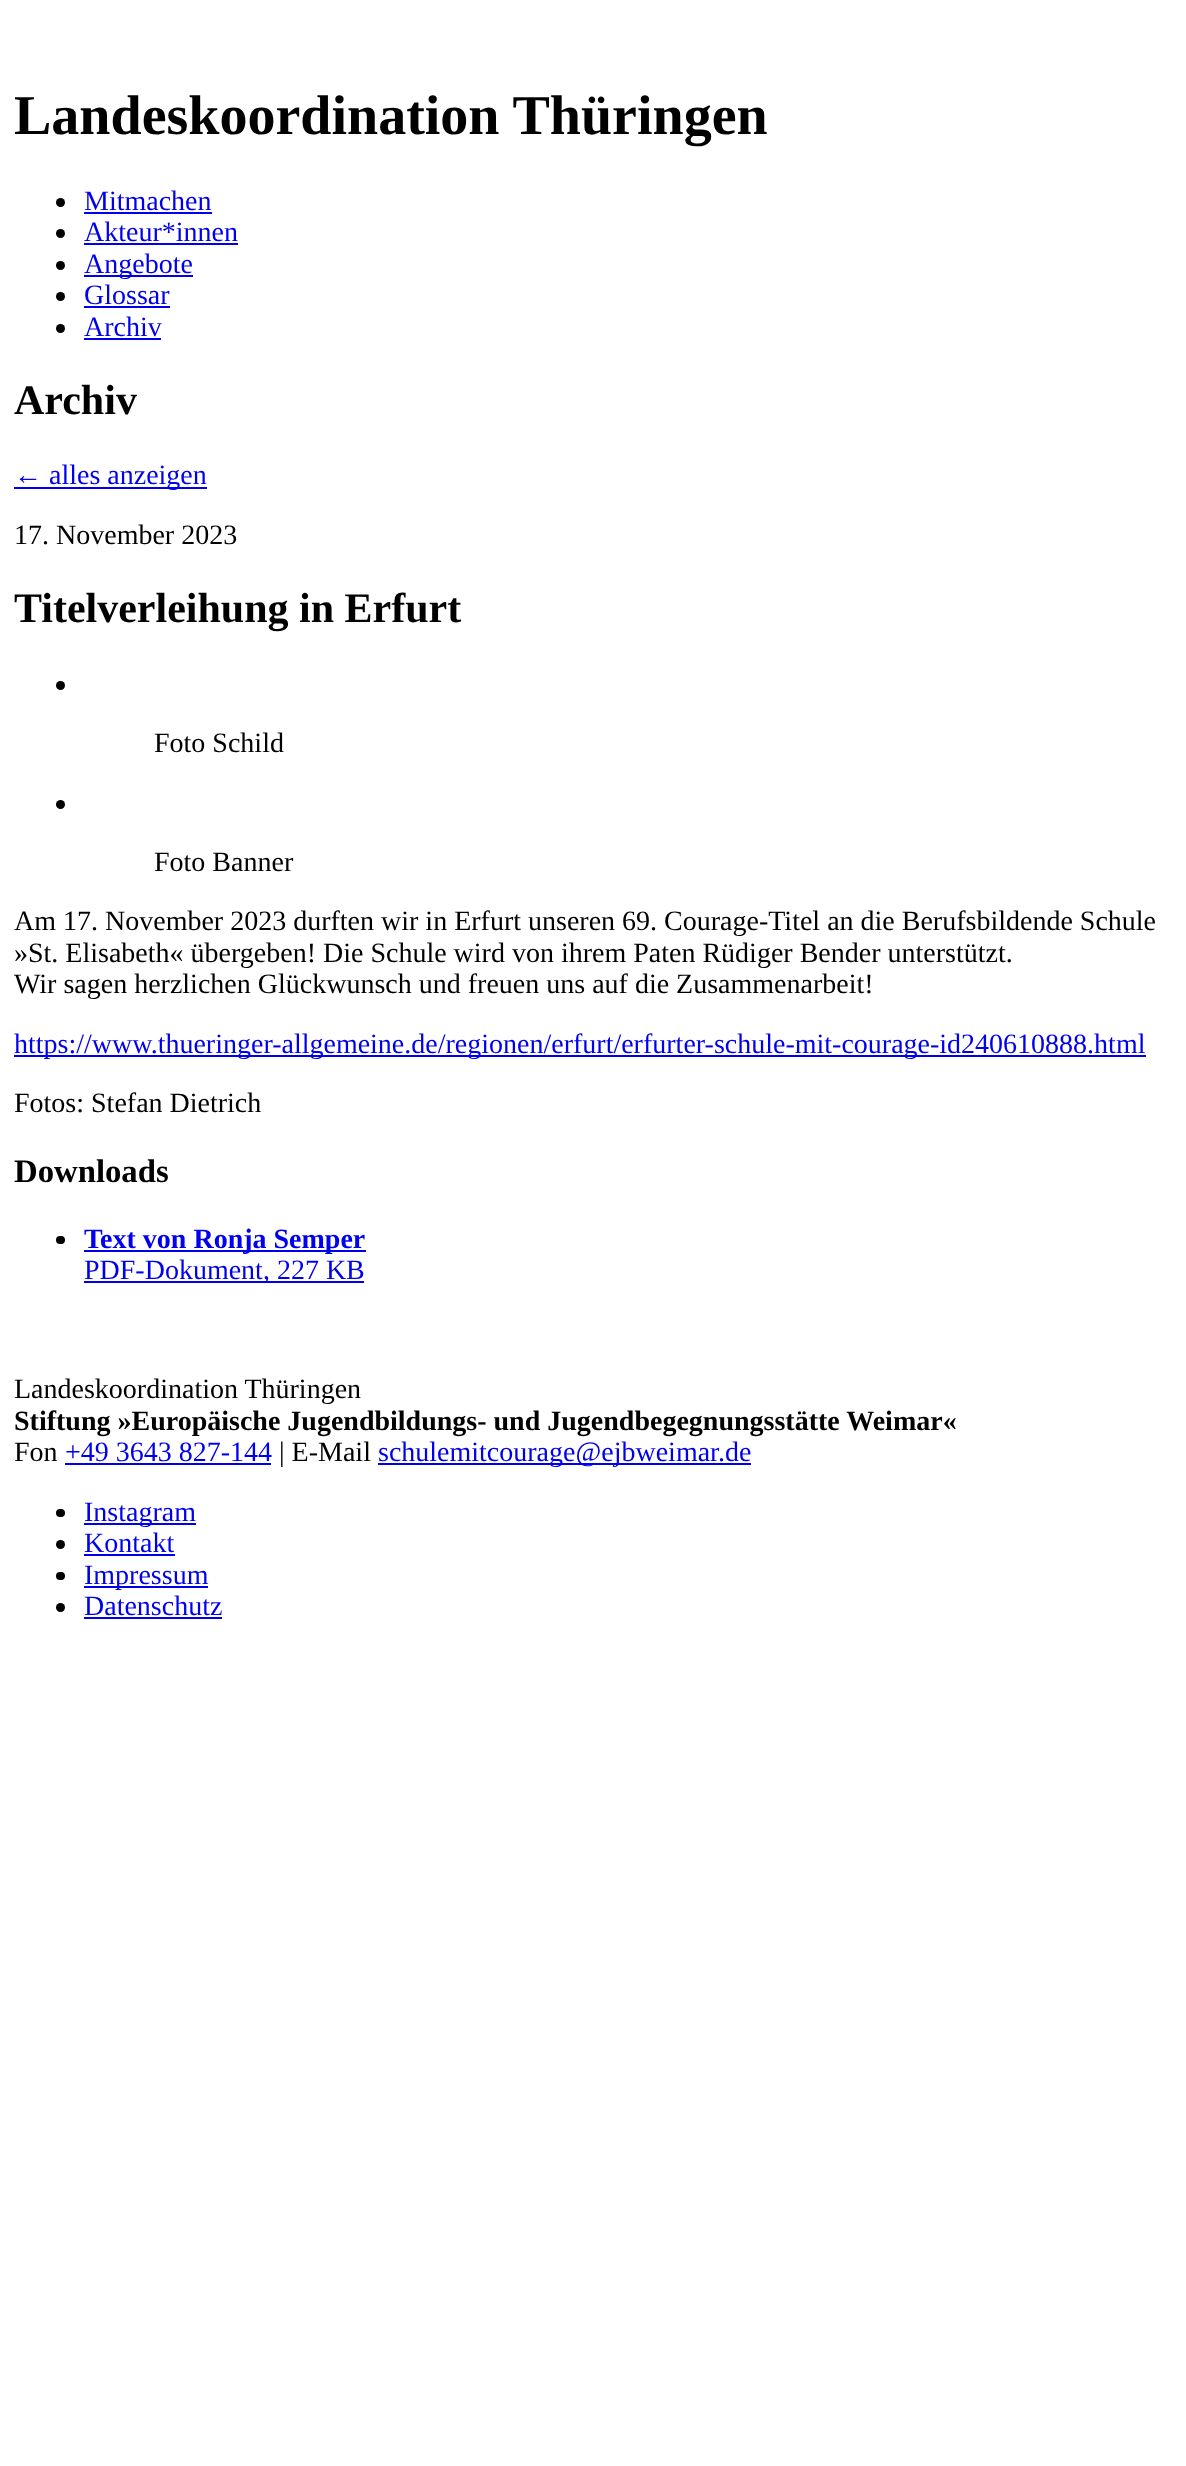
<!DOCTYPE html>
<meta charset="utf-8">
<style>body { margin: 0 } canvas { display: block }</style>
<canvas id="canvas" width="1186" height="2466"></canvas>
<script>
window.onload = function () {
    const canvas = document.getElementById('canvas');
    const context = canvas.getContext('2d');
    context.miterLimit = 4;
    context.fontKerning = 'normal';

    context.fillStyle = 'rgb(255, 255, 255)';
    context.fillRect(0, 0, 1186, 2466);
    context.fillStyle = 'rgb(0, 0, 0)';
    context.beginPath();
    context.arc(60.5, 202.5, 4.5, 0, 2 * Math.PI);
    context.fill();
    context.fillStyle = 'rgb(0, 0, 238)';
    context.fillRect(84, 212, 128, 2);
    context.fillStyle = 'rgb(0, 0, 0)';
    context.beginPath();
    context.arc(60.5, 233.5, 4.5, 0, 2 * Math.PI);
    context.fill();
    context.fillStyle = 'rgb(0, 0, 238)';
    context.fillRect(84, 243, 154, 2);
    context.fillStyle = 'rgb(0, 0, 0)';
    context.beginPath();
    context.arc(60.5, 265.5, 4.5, 0, 2 * Math.PI);
    context.fill();
    context.fillStyle = 'rgb(0, 0, 238)';
    context.fillRect(84, 275, 109, 2);
    context.fillStyle = 'rgb(0, 0, 0)';
    context.beginPath();
    context.arc(60.5, 296.5, 4.5, 0, 2 * Math.PI);
    context.fill();
    context.fillStyle = 'rgb(0, 0, 238)';
    context.fillRect(84, 306, 86, 2);
    context.fillStyle = 'rgb(0, 0, 0)';
    context.beginPath();
    context.arc(60.5, 328.5, 4.5, 0, 2 * Math.PI);
    context.fill();
    context.fillStyle = 'rgb(0, 0, 238)';
    context.fillRect(84, 338, 77, 2);
    context.fillRect(14, 487, 193, 2);
    context.fillStyle = 'rgb(0, 0, 0)';
    context.beginPath();
    context.arc(60.5, 685.5, 4.5, 0, 2 * Math.PI);
    context.fill();
    context.beginPath();
    context.arc(60.5, 804.5, 4.5, 0, 2 * Math.PI);
    context.fill();
    context.fillStyle = 'rgb(0, 0, 238)';
    context.fillRect(14, 1055, 1132, 2);
    context.fillStyle = 'rgb(0, 0, 0)';
    context.beginPath();
    context.roundRect(56, 1236, 9, 8, 4);
    context.fill();
    context.fillStyle = 'rgb(0, 0, 238)';
    context.fillRect(84, 1250, 282, 2);
    context.fillRect(84, 1281, 280, 2);
    context.fillRect(65, 1463, 206, 2);
    context.fillRect(378, 1463, 373, 2);
    context.fillStyle = 'rgb(0, 0, 0)';
    context.beginPath();
    context.roundRect(56, 1509, 9, 8, 4);
    context.fill();
    context.fillStyle = 'rgb(0, 0, 238)';
    context.fillRect(84, 1523, 112, 2);
    context.fillStyle = 'rgb(0, 0, 0)';
    context.beginPath();
    context.arc(60.5, 1544.5, 4.5, 0, 2 * Math.PI);
    context.fill();
    context.fillStyle = 'rgb(0, 0, 238)';
    context.fillRect(84, 1554, 91, 2);
    context.fillStyle = 'rgb(0, 0, 0)';
    context.beginPath();
    context.roundRect(56, 1572, 9, 8, 4);
    context.fill();
    context.fillStyle = 'rgb(0, 0, 238)';
    context.fillRect(84, 1586, 124, 2);
    context.fillStyle = 'rgb(0, 0, 0)';
    context.beginPath();
    context.arc(60.5, 1607.5, 4.5, 0, 2 * Math.PI);
    context.fill();
    context.fillStyle = 'rgb(0, 0, 238)';
    context.fillRect(84, 1617, 138, 2);
    context.font = 'bold 56px Liberation Serif';
    context.fillStyle = 'rgb(0, 0, 0)';
    context.fillText('Landeskoordination Thüringen', 14, 134);
    context.font = '28px Liberation Serif';
    context.fillStyle = 'rgb(0, 0, 238)';
    context.fillText('Mitmachen', 84, 210);
    context.fillText('Akteur*innen', 84, 241);
    context.fillText('Angebote', 84, 273);
    context.fillText('Glossar', 84, 304);
    context.fillText('Archiv', 84, 336);
    context.font = 'bold 42px Liberation Serif';
    context.fillStyle = 'rgb(0, 0, 0)';
    context.fillText('Archiv', 14, 414);
    context.font = '28px Liberation Serif';
    context.fillStyle = 'rgb(0, 0, 238)';
    context.fillText('← alles anzeigen', 14, 484);
    context.fillStyle = 'rgb(0, 0, 0)';
    context.fillText('17. November 2023', 14, 544);
    context.font = 'bold 42px Liberation Serif';
    context.fillText('Titelverleihung in Erfurt', 14, 622);
    context.font = '28px Liberation Serif';
    context.fillText('Foto Schild', 154, 752);
    context.fillText('Foto Banner', 154, 871);
    context.fillText('Am 17. November 2023 durften wir in Erfurt unseren 69. Courage-Titel an die Berufsbildende Schule', 14, 930);
    context.fillText('»St. Elisabeth« übergeben! Die Schule wird von ihrem Paten Rüdiger Bender unterstützt.', 14, 962);
    context.fillText('Wir sagen herzlichen Glückwunsch und freuen uns auf die Zusammenarbeit!', 14, 993);
    context.fillStyle = 'rgb(0, 0, 238)';
    context.fillText('https://www.thueringer-allgemeine.de/regionen/erfurt/erfurter-schule-mit-courage-id240610888.html', 14, 1053);
    context.fillStyle = 'rgb(0, 0, 0)';
    context.fillText('Fotos: Stefan Dietrich', 14, 1112);
    context.font = 'bold 32.75px Liberation Serif';
    context.fillText('Downloads', 14, 1182);
    context.font = 'bold 28px Liberation Serif';
    context.fillStyle = 'rgb(0, 0, 238)';
    context.fillText('Text von Ronja Semper', 84, 1248);
    context.font = '28px Liberation Serif';
    context.fillText('PDF-Dokument, 227 KB', 84, 1279);
    context.fillStyle = 'rgb(0, 0, 0)';
    context.fillText('Landeskoordination Thüringen', 14, 1398);
    context.font = 'bold 28px Liberation Serif';
    context.fillText('Stiftung »Europäische Jugendbildungs- und Jugendbegegnungsstätte Weimar«', 14, 1430);
    context.font = '28px Liberation Serif';
    context.fillText('Fon', 14, 1461);
    context.fillStyle = 'rgb(0, 0, 238)';
    context.fillText('+49 3643 827-144', 65, 1461);
    context.fillStyle = 'rgb(0, 0, 0)';
    context.fillText('| E-Mail', 279, 1461);
    context.fillStyle = 'rgb(0, 0, 238)';
    context.fillText('schulemitcourage@ejbweimar.de', 378, 1461);
    context.fillText('Instagram', 84, 1521);
    context.fillText('Kontakt', 84, 1552);
    context.fillText('Impressum', 84, 1584);
    context.fillText('Datenschutz', 84, 1615);
};
</script>
